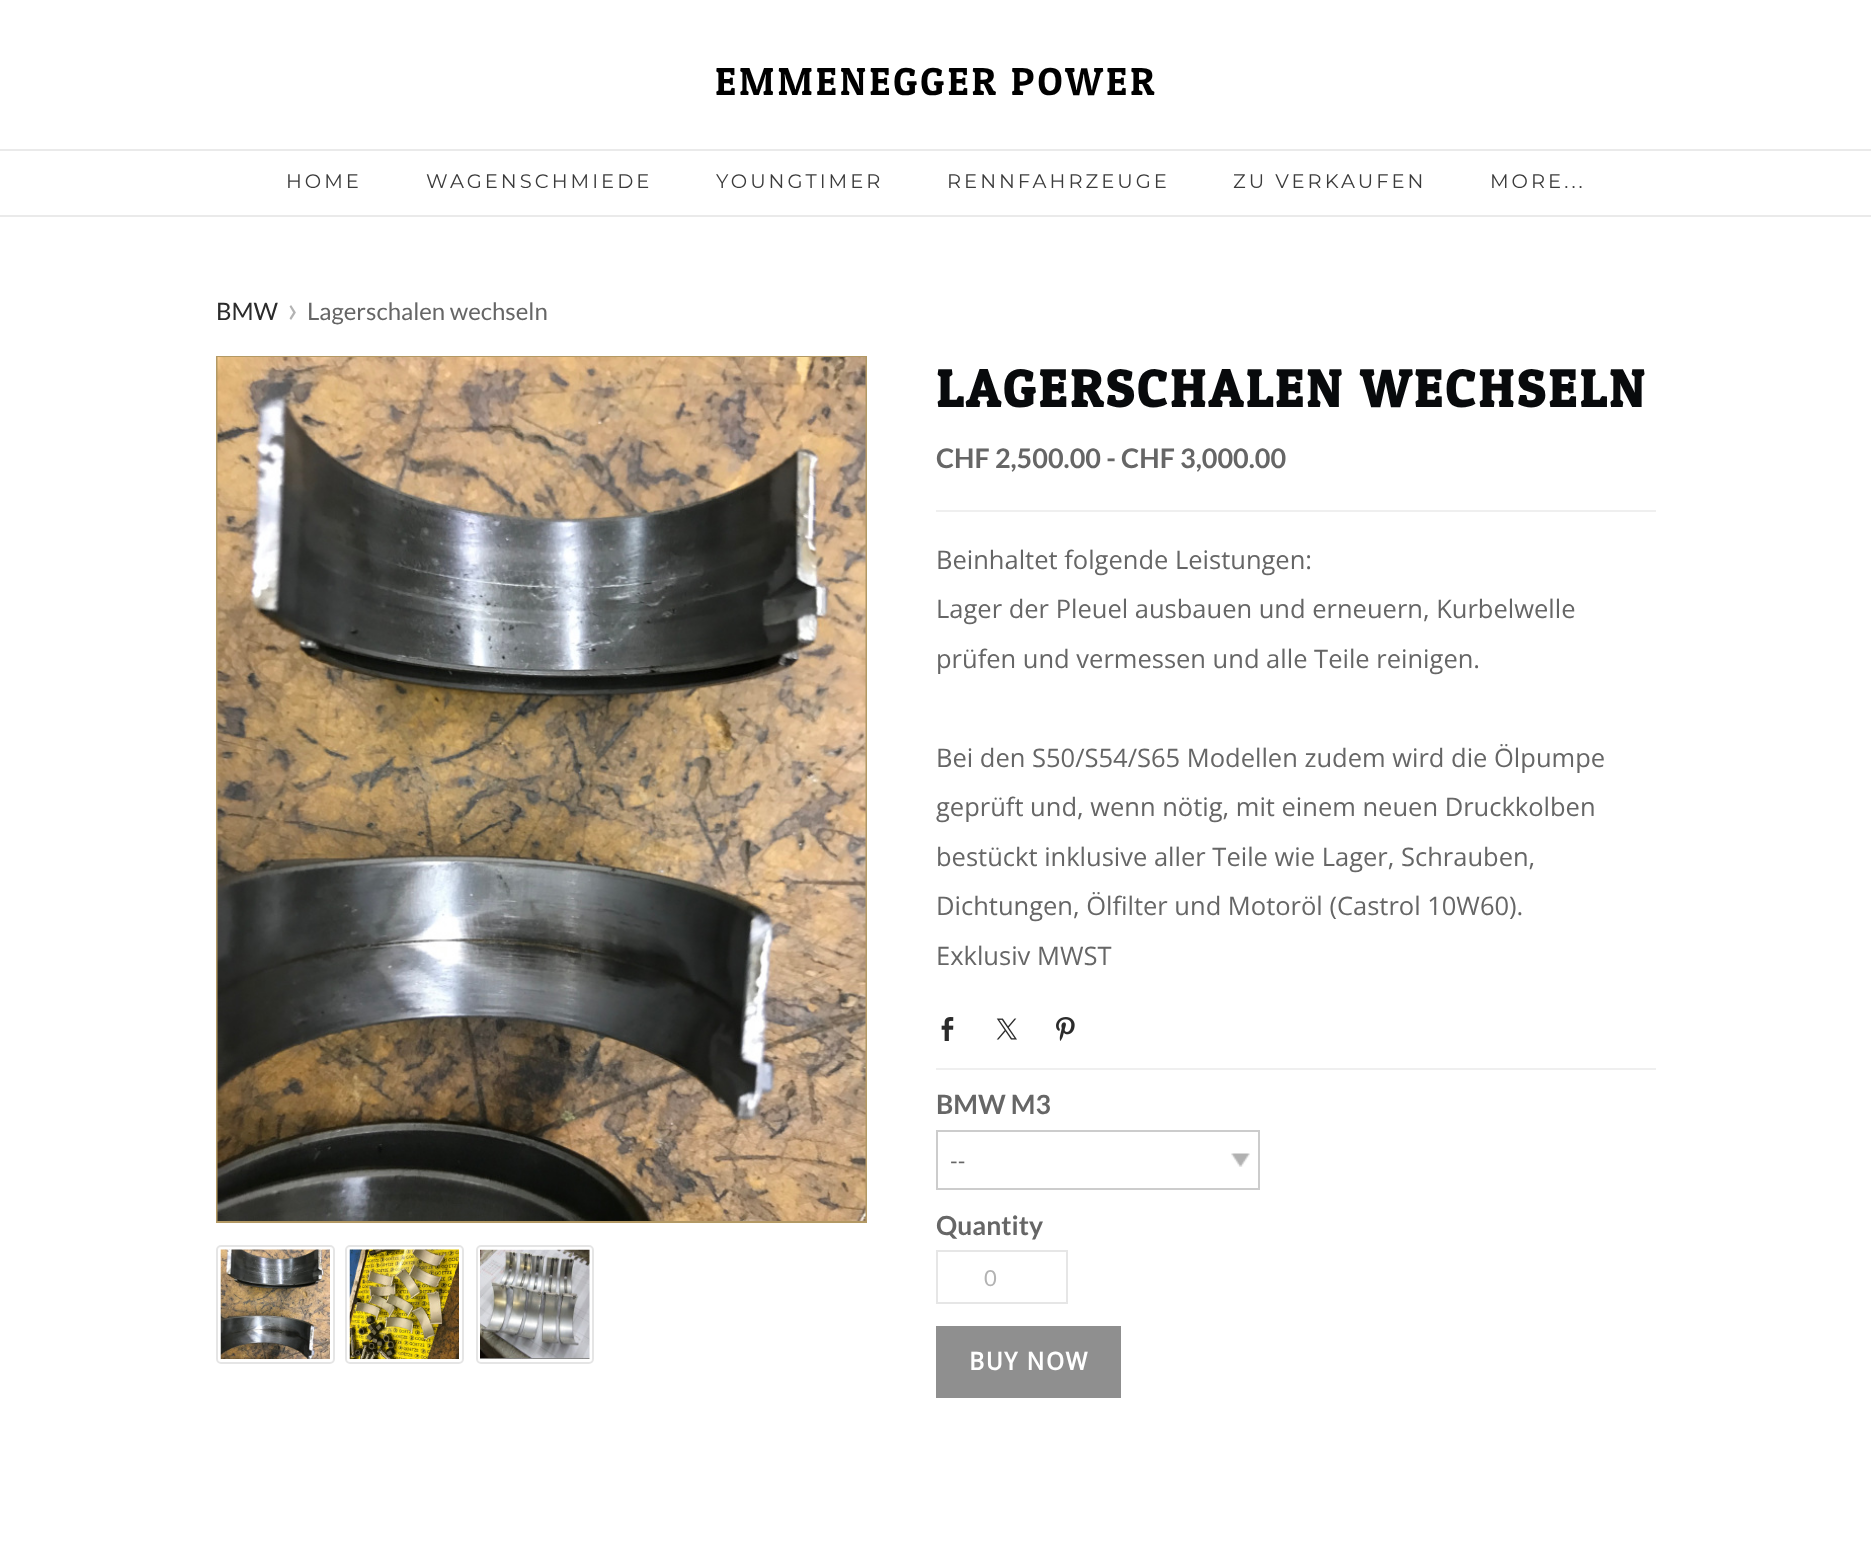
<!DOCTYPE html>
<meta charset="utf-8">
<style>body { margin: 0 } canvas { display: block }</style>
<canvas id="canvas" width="1871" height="1560"></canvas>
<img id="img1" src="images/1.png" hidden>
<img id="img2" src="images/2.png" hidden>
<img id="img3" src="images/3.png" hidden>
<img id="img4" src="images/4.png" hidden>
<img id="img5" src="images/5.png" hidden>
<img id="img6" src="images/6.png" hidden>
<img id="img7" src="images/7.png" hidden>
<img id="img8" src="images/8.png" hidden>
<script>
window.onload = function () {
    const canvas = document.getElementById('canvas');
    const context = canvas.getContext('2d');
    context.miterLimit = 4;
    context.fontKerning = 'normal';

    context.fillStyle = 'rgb(255, 255, 255)';
    context.fillRect(0, 0, 1871, 1560);
    context.fillStyle = 'rgb(234, 234, 234)';
    context.fillRect(0, 215, 1871, 2);
    context.fillRect(0, 149, 1871, 2);
    context.strokeStyle = 'rgb(179, 153, 100)';
    context.lineWidth = 2;
    context.strokeRect(217, 357, 649, 865);
    context.drawImage(document.getElementById('img1'), 217, 357, 649, 864);
    context.beginPath();
    context.roundRect(217, 1246, 117, 117, 4);
    context.strokeStyle = 'rgba(0, 0, 0, 0.1)';
    context.stroke();
    context.drawImage(document.getElementById('img2'), 220, 1249, 110, 110);
    context.beginPath();
    context.roundRect(346, 1246, 117, 117, 4);
    context.stroke();
    context.drawImage(document.getElementById('img3'), 349, 1249, 110, 110);
    context.beginPath();
    context.roundRect(477, 1246, 116, 117, 4);
    context.stroke();
    context.drawImage(document.getElementById('img4'), 480, 1249, 110, 110);
    context.fillStyle = 'rgb(239, 239, 239)';
    context.fillRect(936, 510, 720, 2);
    context.drawImage(document.getElementById('img5'), 941, 1017, 13, 24);
    context.drawImage(document.getElementById('img6'), 996, 1018, 21, 22);
    context.drawImage(document.getElementById('img7'), 1056, 1017, 19, 24);
    context.fillRect(936, 1068, 720, 2);
    context.drawImage(document.getElementById('img8'), 1231, 1153, 19, 14);
    context.strokeStyle = 'rgb(204, 204, 204)';
    context.strokeRect(937, 1131, 322, 58);
    context.strokeStyle = 'rgb(230, 230, 230)';
    context.strokeRect(937, 1251, 130, 52);
    context.fillStyle = 'rgb(143, 143, 143)';
    context.fillRect(936, 1326, 185, 72);
    context.letterSpacing = '3px';
    context.font = '39px Patua One';
    context.fillStyle = 'rgb(0, 0, 0)';
    context.fillText('EMMENEGGER POWER', 715, 95);
    context.font = '100 19.5px Montserrat';
    context.fillStyle = 'rgb(59, 59, 59)';
    context.fillText('HOME', 286, 188);
    context.fillText('WAGENSCHMIEDE', 426, 188);
    context.fillText('YOUNGTIMER', 716, 188);
    context.fillText('RENNFAHRZEUGE', 947, 188);
    context.fillText('ZU VERKAUFEN', 1233, 188);
    context.fillText('MORE...', 1490, 188);
    context.letterSpacing = '0px';
    context.font = '24px Lato';
    context.fillStyle = 'rgb(43, 43, 43)';
    context.fillText('BMW', 216, 320);
    context.font = '36px Lato';
    context.fillStyle = 'rgb(179, 179, 179)';
    context.fillText('›', 287, 322);
    context.font = '24px Lato';
    context.fillStyle = 'rgb(102, 102, 102)';
    context.fillText('Lagerschalen wechseln', 307, 320);
    context.letterSpacing = '3px';
    context.font = 'bold 52.5px Patua One';
    context.fillStyle = 'rgb(8, 10, 12)';
    context.fillText('LAGERSCHALEN WECHSELN', 936, 407);
    context.letterSpacing = '0px';
    context.font = 'bold 27px Lato';
    context.fillStyle = 'rgb(102, 102, 102)';
    context.fillText('CHF 2,500.00 - CHF 3,000.00', 936, 468);
    context.font = '25.5px Open Sans';
    context.fillText('Beinhaltet folgende Leistungen:', 936, 569);
    context.fillText('Lager der Pleuel ausbauen und erneuern, Kurbelwelle', 936, 618);
    context.fillText('prüfen und vermessen und alle Teile reinigen.', 936, 668);
    context.fillText('Bei den S50/S54/S65 Modellen zudem wird die Ölpumpe', 936, 767);
    context.fillText('geprüft und, wenn nötig, mit einem neuen Druckkolben', 936, 816);
    context.fillText('bestückt inklusive aller Teile wie Lager, Schrauben,', 936, 866);
    context.fillText('Dichtungen, Ölfilter und Motoröl (Castrol 10W60).', 936, 915);
    context.fillText('Exklusiv MWST', 936, 965);
    context.font = 'bold 26.5px Lato';
    context.fillText('BMW M3', 936, 1114);
    context.font = '22px Lato';
    context.fillText('--', 950, 1169);
    context.font = 'bold 26.5px Lato';
    context.fillText('Quantity', 936, 1235);
    context.font = '22px Lato';
    context.fillStyle = 'rgb(179, 179, 179)';
    context.fillText('0', 984, 1286);
    context.letterSpacing = '1.5px';
    context.font = 'bold 24.5px Droid Sans';
    context.fillStyle = 'rgb(255, 255, 255)';
    context.fillText('BUY NOW', 969, 1370);
};
</script>
